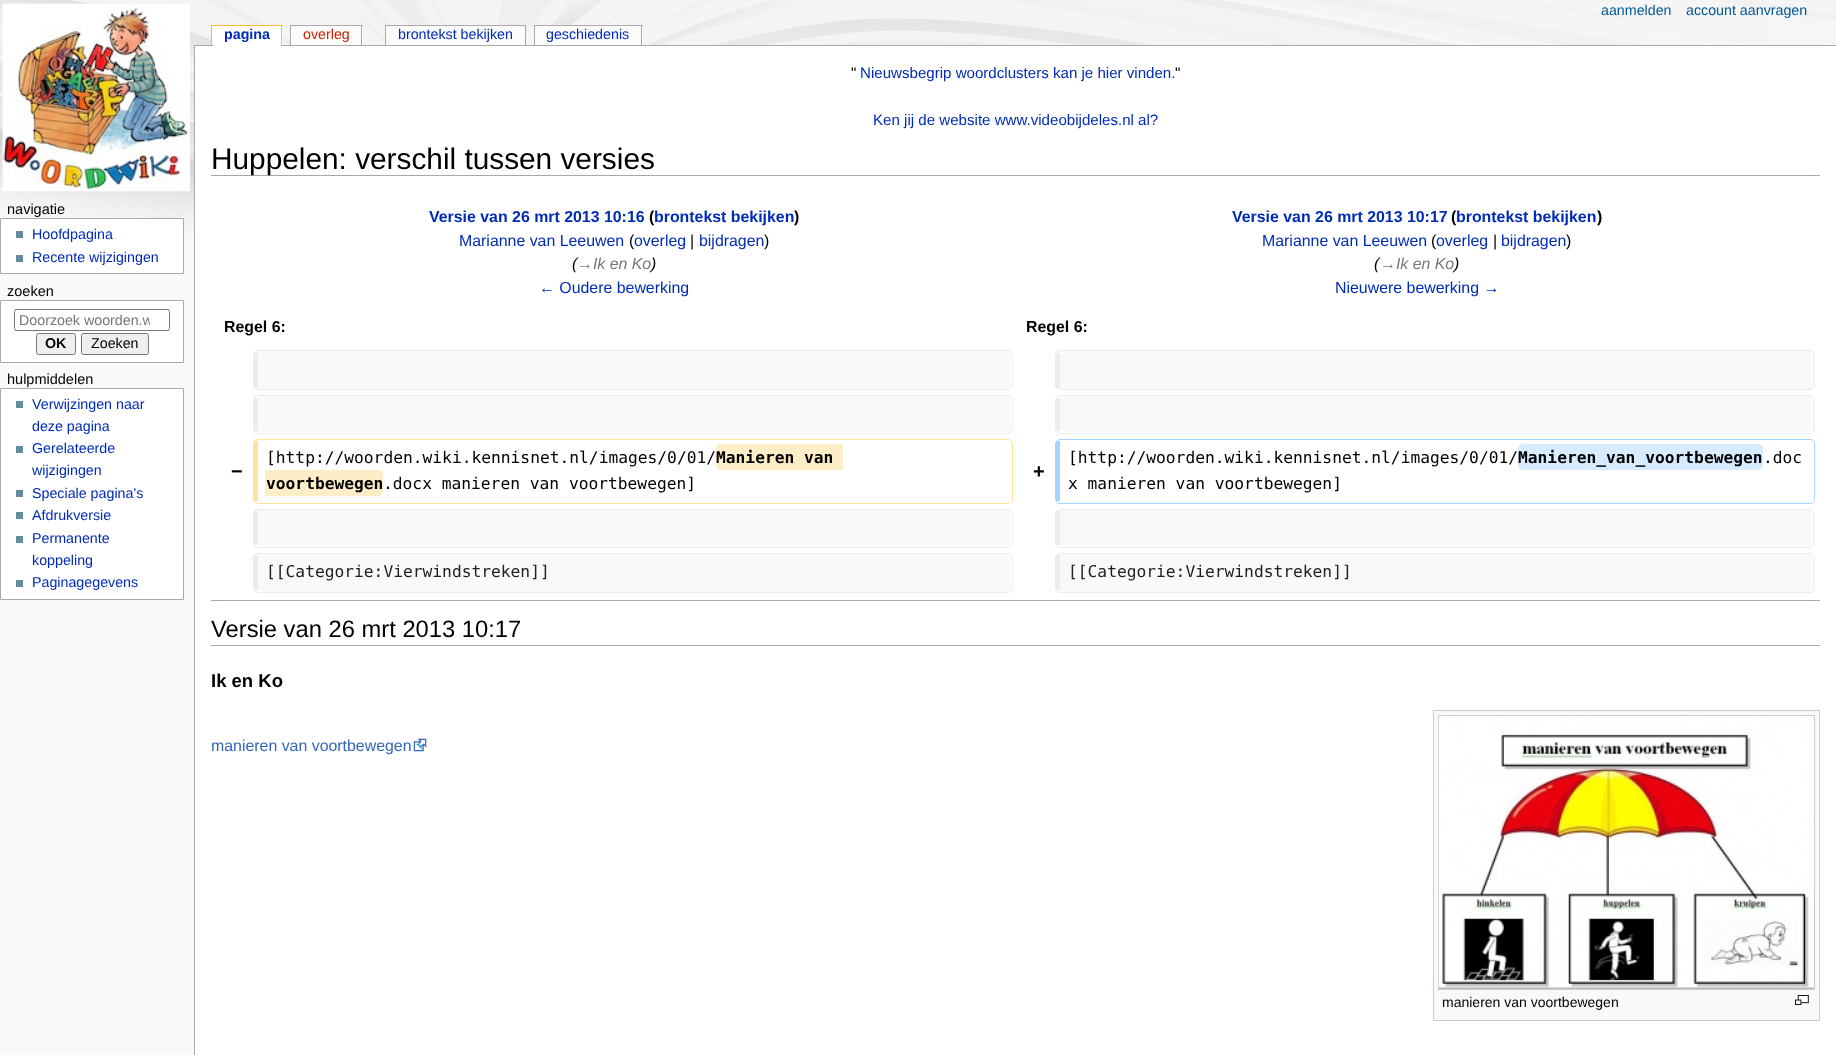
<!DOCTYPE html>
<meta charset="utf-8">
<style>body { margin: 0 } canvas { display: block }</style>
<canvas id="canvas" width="1836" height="1055"></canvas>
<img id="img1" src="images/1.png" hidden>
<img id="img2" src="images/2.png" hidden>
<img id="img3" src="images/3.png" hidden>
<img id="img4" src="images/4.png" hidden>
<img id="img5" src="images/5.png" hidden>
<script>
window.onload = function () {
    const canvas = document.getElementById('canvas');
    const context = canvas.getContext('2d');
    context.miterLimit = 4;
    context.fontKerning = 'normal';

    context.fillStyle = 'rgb(249, 249, 249)';
    context.fillRect(0, 0, 1836, 1055);
    context.drawImage(document.getElementById('img1'), 0, 0, 1836, 263);
    context.drawImage(document.getElementById('img2'), 2, 3, 188, 189);
    context.fillStyle = 'rgb(255, 255, 255)';
    context.fillRect(212, 26, 71, 19);
    context.fillStyle = 'rgb(250, 189, 35)';
    context.fillRect(211, 25, 72, 1);
    context.fillRect(281, 25, 1, 20);
    context.fillRect(211, 25, 1, 20);
    context.fillStyle = 'rgb(170, 170, 170)';
    context.fillRect(194, 45, 1642, 1);
    context.fillStyle = 'rgb(255, 255, 255)';
    context.fillRect(213, 45, 68, 1);
    context.fillRect(362, 26, 1, 19);
    context.fillStyle = 'rgb(170, 170, 170)';
    context.fillRect(290, 25, 73, 1);
    context.fillRect(361, 25, 1, 20);
    context.fillRect(290, 25, 1, 20);
    context.fillStyle = 'rgb(251, 251, 251)';
    context.fillRect(291, 26, 70, 19);
    context.fillStyle = 'rgb(170, 170, 170)';
    context.fillRect(385, 25, 141, 1);
    context.fillRect(525, 25, 1, 20);
    context.fillRect(385, 25, 1, 20);
    context.fillStyle = 'rgb(251, 251, 251)';
    context.fillRect(386, 26, 139, 19);
    context.fillStyle = 'rgb(255, 255, 255)';
    context.fillRect(642, 26, 1, 19);
    context.fillStyle = 'rgb(170, 170, 170)';
    context.fillRect(534, 25, 109, 1);
    context.fillRect(641, 25, 1, 20);
    context.fillRect(534, 25, 1, 20);
    context.fillStyle = 'rgb(251, 251, 251)';
    context.fillRect(535, 26, 106, 19);
    context.fillStyle = 'rgb(255, 255, 255)';
    context.beginPath();
    context.rect(0.5, 218.5, 183, 55);
    context.fill();
    context.strokeStyle = 'rgb(170, 170, 170)';
    context.stroke();
    context.fillStyle = 'rgb(99, 140, 156)';
    context.fillRect(16, 231, 7, 7);
    context.fillRect(16, 255, 7, 7);
    context.fillStyle = 'rgb(255, 255, 255)';
    context.beginPath();
    context.rect(0.5, 300.5, 183, 62);
    context.fill();
    context.stroke();
    context.beginPath();
    context.roundRect(14.5, 309.5, 155, 21, 2);
    context.strokeStyle = 'rgb(118, 118, 118)';
    context.stroke();
    context.fillStyle = 'rgb(239, 239, 239)';
    context.beginPath();
    context.roundRect(36.5, 333.5, 39, 21, 2);
    context.fill();
    context.stroke();
    context.beginPath();
    context.roundRect(81.5, 333.5, 67, 21, 2);
    context.fill();
    context.stroke();
    context.fillStyle = 'rgb(255, 255, 255)';
    context.beginPath();
    context.rect(0.5, 388.5, 183, 211);
    context.fill();
    context.strokeStyle = 'rgb(170, 170, 170)';
    context.stroke();
    context.fillStyle = 'rgb(99, 140, 156)';
    context.fillRect(16, 401, 7, 7);
    context.fillRect(16, 446, 7, 7);
    context.fillRect(16, 490, 7, 7);
    context.fillRect(16, 512, 7, 7);
    context.fillRect(16, 536, 7, 7);
    context.fillRect(16, 580, 7, 7);
    context.fillStyle = 'rgb(255, 255, 255)';
    context.fillRect(195, 46, 1641, 1009);
    context.fillStyle = 'rgb(170, 170, 170)';
    context.fillRect(194, 45, 1, 1010);
    context.fillStyle = 'rgb(162, 169, 177)';
    context.fillRect(211, 175, 1609, 1);
    context.fillStyle = 'rgb(248, 249, 250)';
    context.beginPath();
    context.moveTo(258, 351);
    context.lineTo(1007, 351);
    context.bezierCurveTo(1009, 351, 1011, 353, 1011, 355);
    context.lineTo(1011, 385);
    context.bezierCurveTo(1011, 387, 1009, 389, 1007, 389);
    context.lineTo(258, 389);
    context.lineTo(258, 385);
    context.closePath();
    context.fill();
    context.beginPath();
    context.roundRect(253.5, 350.5, 759, 39, 4.5);
    context.strokeStyle = 'rgb(234, 236, 240)';
    context.stroke();
    context.fillStyle = 'rgb(234, 236, 240)';
    context.fillRect(254, 353, 4, 35);
    context.fillStyle = 'rgb(248, 249, 250)';
    context.beginPath();
    context.moveTo(1060, 351);
    context.lineTo(1810, 351);
    context.bezierCurveTo(1812, 351, 1814, 353, 1814, 355);
    context.lineTo(1814, 385);
    context.bezierCurveTo(1814, 387, 1812, 389, 1810, 389);
    context.lineTo(1060, 389);
    context.lineTo(1060, 385);
    context.closePath();
    context.fill();
    context.beginPath();
    context.roundRect(1055.5, 350.5, 759, 39, 4.5);
    context.stroke();
    context.fillStyle = 'rgb(234, 236, 240)';
    context.fillRect(1056, 353, 4, 35);
    context.fillStyle = 'rgb(248, 249, 250)';
    context.beginPath();
    context.moveTo(258, 396);
    context.lineTo(1007, 396);
    context.bezierCurveTo(1009, 396, 1011, 398, 1011, 400);
    context.lineTo(1011, 428);
    context.bezierCurveTo(1011, 431, 1009, 432, 1007, 432);
    context.lineTo(258, 432);
    context.lineTo(258, 428);
    context.closePath();
    context.fill();
    context.beginPath();
    context.roundRect(253.5, 395.5, 759, 38, 4.5);
    context.stroke();
    context.fillStyle = 'rgb(234, 236, 240)';
    context.fillRect(254, 398, 4, 33);
    context.fillStyle = 'rgb(248, 249, 250)';
    context.beginPath();
    context.moveTo(1060, 396);
    context.lineTo(1810, 396);
    context.bezierCurveTo(1812, 396, 1814, 398, 1814, 400);
    context.lineTo(1814, 428);
    context.bezierCurveTo(1814, 431, 1812, 432, 1810, 432);
    context.lineTo(1060, 432);
    context.lineTo(1060, 428);
    context.closePath();
    context.fill();
    context.beginPath();
    context.roundRect(1055.5, 395.5, 759, 38, 4.5);
    context.stroke();
    context.fillStyle = 'rgb(234, 236, 240)';
    context.fillRect(1056, 398, 4, 33);
    context.beginPath();
    context.roundRect(253.5, 439.5, 759, 64, 4.5);
    context.strokeStyle = 'rgb(255, 228, 156)';
    context.stroke();
    context.fillStyle = 'rgb(255, 228, 156)';
    context.fillRect(254, 441, 4, 60);
    context.fillStyle = 'rgb(254, 238, 200)';
    context.beginPath();
    context.roundRect(716, 444, 127, 26, [5, 0, 0, 5]);
    context.fill();
    context.beginPath();
    context.roundRect(265, 470, 118, 26, [0, 5, 5, 0]);
    context.fill();
    context.beginPath();
    context.roundRect(1055.5, 439.5, 759, 64, 4.5);
    context.strokeStyle = 'rgb(163, 211, 255)';
    context.stroke();
    context.fillStyle = 'rgb(163, 211, 255)';
    context.fillRect(1056, 441, 4, 60);
    context.fillStyle = 'rgb(216, 236, 255)';
    context.beginPath();
    context.roundRect(1518, 444, 245, 26, 5);
    context.fill();
    context.fillStyle = 'rgb(248, 249, 250)';
    context.beginPath();
    context.moveTo(258, 510);
    context.lineTo(1007, 510);
    context.bezierCurveTo(1009, 510, 1011, 512, 1011, 514);
    context.lineTo(1011, 542);
    context.bezierCurveTo(1011, 544, 1009, 546, 1007, 546);
    context.lineTo(258, 546);
    context.lineTo(258, 542);
    context.closePath();
    context.fill();
    context.beginPath();
    context.roundRect(253.5, 509.5, 759, 38, 4.5);
    context.strokeStyle = 'rgb(234, 236, 240)';
    context.stroke();
    context.fillStyle = 'rgb(234, 236, 240)';
    context.fillRect(254, 511, 4, 34);
    context.fillStyle = 'rgb(248, 249, 250)';
    context.beginPath();
    context.moveTo(1060, 510);
    context.lineTo(1810, 510);
    context.bezierCurveTo(1812, 510, 1814, 512, 1814, 514);
    context.lineTo(1814, 542);
    context.bezierCurveTo(1814, 544, 1812, 546, 1810, 546);
    context.lineTo(1060, 546);
    context.lineTo(1060, 542);
    context.closePath();
    context.fill();
    context.beginPath();
    context.roundRect(1055.5, 509.5, 759, 38, 4.5);
    context.stroke();
    context.fillStyle = 'rgb(234, 236, 240)';
    context.fillRect(1056, 511, 4, 34);
    context.fillStyle = 'rgb(248, 249, 250)';
    context.beginPath();
    context.moveTo(258, 554);
    context.lineTo(1007, 554);
    context.bezierCurveTo(1009, 554, 1011, 556, 1011, 558);
    context.lineTo(1011, 587);
    context.bezierCurveTo(1011, 589, 1009, 591, 1007, 591);
    context.lineTo(258, 591);
    context.lineTo(258, 587);
    context.closePath();
    context.fill();
    context.beginPath();
    context.roundRect(253.5, 553.5, 759, 39, 4.5);
    context.stroke();
    context.fillStyle = 'rgb(234, 236, 240)';
    context.fillRect(254, 555, 4, 35);
    context.fillStyle = 'rgb(248, 249, 250)';
    context.beginPath();
    context.moveTo(1060, 554);
    context.lineTo(1810, 554);
    context.bezierCurveTo(1812, 554, 1814, 556, 1814, 558);
    context.lineTo(1814, 587);
    context.bezierCurveTo(1814, 589, 1812, 591, 1810, 591);
    context.lineTo(1060, 591);
    context.lineTo(1060, 587);
    context.closePath();
    context.fill();
    context.beginPath();
    context.roundRect(1055.5, 553.5, 759, 39, 4.5);
    context.stroke();
    context.fillStyle = 'rgb(234, 236, 240)';
    context.fillRect(1056, 555, 4, 35);
    context.fillStyle = 'rgb(162, 169, 177)';
    context.fillRect(211, 600, 1609, 1);
    context.fillRect(211, 645, 1609, 1);
    context.drawImage(document.getElementById('img3'), 413, 738, 14, 14);
    context.fillStyle = 'rgb(248, 249, 250)';
    context.beginPath();
    context.rect(1433.5, 710.5, 386, 310);
    context.fill();
    context.strokeStyle = 'rgb(200, 204, 209)';
    context.stroke();
    context.fillStyle = 'rgb(255, 255, 255)';
    context.beginPath();
    context.rect(1438.5, 715.5, 376, 274);
    context.fill();
    context.stroke();
    context.drawImage(document.getElementById('img4'), 1438, 716, 376, 273);
    context.drawImage(document.getElementById('img5'), 1795, 995, 14, 10);
    context.font = '14.25px Liberation Sans';
    context.fillStyle = 'rgb(0, 88, 150)';
    context.fillText('aanmelden', 1601, 15);
    context.fillText('account aanvragen', 1686, 15);
    context.font = 'bold 14.25px Liberation Sans';
    context.fillStyle = 'rgb(0, 43, 184)';
    context.fillText('pagina', 224, 39);
    context.font = '14.25px Liberation Sans';
    context.fillStyle = 'rgb(204, 34, 0)';
    context.fillText('overleg', 303, 39);
    context.fillStyle = 'rgb(0, 43, 184)';
    context.fillText('brontekst bekijken', 398, 39);
    context.fillText('geschiedenis', 546, 39);
    context.font = '14.5px Liberation Sans';
    context.fillStyle = 'rgb(0, 0, 0)';
    context.fillText('navigatie', 7, 214);
    context.font = '14.25px Liberation Sans';
    context.fillStyle = 'rgb(0, 43, 184)';
    context.fillText('Hoofdpagina', 32, 239);
    context.fillText('Recente wijzigingen', 32, 262);
    context.font = '14.5px Liberation Sans';
    context.fillStyle = 'rgb(0, 0, 0)';
    context.fillText('zoeken', 7, 296);
    context.save();
    context.beginPath();
    context.rect(19, 313, 131, 15);
    context.clip();
    context.font = '14.25px Liberation Sans';
    context.fillStyle = 'rgb(117, 117, 117)';
    context.fillText('Doorzoek woorden.w', 19, 325);
    context.restore();
    context.font = 'bold 14.25px Liberation Sans';
    context.fillText('OK', 45, 348);
    context.font = '14.25px Liberation Sans';
    context.fillText('Zoeken', 91, 348);
    context.font = '14.5px Liberation Sans';
    context.fillText('hulpmiddelen', 7, 384);
    context.font = '14.25px Liberation Sans';
    context.fillStyle = 'rgb(0, 43, 184)';
    context.fillText('Verwijzingen naar', 32, 409);
    context.fillText('deze pagina', 32, 431);
    context.fillText('Gerelateerde', 32, 453);
    context.fillText('wijzigingen', 32, 475);
    context.fillText('Speciale pagina\'s', 32, 498);
    context.fillText('Afdrukversie', 32, 520);
    context.fillText('Permanente', 32, 543);
    context.fillText('koppeling', 32, 565);
    context.fillText('Paginagegevens', 32, 587);
    context.font = '15.1px Liberation Sans';
    context.fillStyle = 'rgb(0, 0, 0)';
    context.fillText('"', 851, 78);
    context.fillStyle = 'rgb(0, 43, 184)';
    context.fillText('Nieuwsbegrip woordclusters kan je hier vinden.', 860, 78);
    context.fillStyle = 'rgb(0, 0, 0)';
    context.fillText('"', 1175, 78);
    context.fillStyle = 'rgb(0, 43, 184)';
    context.fillText('Ken jij de website www.videobijdeles.nl al?', 873, 125);
    context.font = '29.8px Liberation Sans';
    context.fillStyle = 'rgb(0, 0, 0)';
    context.fillText('Huppelen: verschil tussen versies', 211, 169);
    context.font = 'bold 15.9px Liberation Sans';
    context.fillStyle = 'rgb(0, 43, 184)';
    context.fillText('Versie van 26 mrt 2013 10:16', 429, 222);
    context.fillStyle = 'rgb(0, 0, 0)';
    context.fillText('(', 649, 222);
    context.fillStyle = 'rgb(0, 43, 184)';
    context.fillText('brontekst bekijken', 654, 222);
    context.fillStyle = 'rgb(0, 0, 0)';
    context.fillText(')', 794, 222);
    context.font = '15.9px Liberation Sans';
    context.fillStyle = 'rgb(0, 43, 184)';
    context.fillText('Marianne van Leeuwen', 459, 246);
    context.fillStyle = 'rgb(0, 0, 0)';
    context.fillText('(', 629, 246);
    context.fillStyle = 'rgb(0, 43, 184)';
    context.fillText('overleg', 634, 246);
    context.fillStyle = 'rgb(0, 0, 0)';
    context.fillText('|', 690, 246);
    context.fillStyle = 'rgb(0, 43, 184)';
    context.fillText('bijdragen', 699, 246);
    context.fillStyle = 'rgb(0, 0, 0)';
    context.fillText(')', 764, 246);
    context.font = 'italic 15.9px Liberation Sans';
    context.fillText('(', 572, 269);
    context.fillStyle = 'rgb(114, 119, 125)';
    context.fillText('→Ik en Ko', 577, 269);
    context.fillStyle = 'rgb(0, 0, 0)';
    context.fillText(')', 651, 269);
    context.font = '15.9px Liberation Sans';
    context.fillStyle = 'rgb(0, 43, 184)';
    context.fillText('← Oudere bewerking', 539, 293);
    context.font = 'bold 15.9px Liberation Sans';
    context.fillText('Versie van 26 mrt 2013 10:17', 1232, 222);
    context.fillStyle = 'rgb(0, 0, 0)';
    context.fillText('(', 1451, 222);
    context.fillStyle = 'rgb(0, 43, 184)';
    context.fillText('brontekst bekijken', 1456, 222);
    context.fillStyle = 'rgb(0, 0, 0)';
    context.fillText(')', 1597, 222);
    context.font = '15.9px Liberation Sans';
    context.fillStyle = 'rgb(0, 43, 184)';
    context.fillText('Marianne van Leeuwen', 1262, 246);
    context.fillStyle = 'rgb(0, 0, 0)';
    context.fillText('(', 1431, 246);
    context.fillStyle = 'rgb(0, 43, 184)';
    context.fillText('overleg', 1436, 246);
    context.fillStyle = 'rgb(0, 0, 0)';
    context.fillText('|', 1493, 246);
    context.fillStyle = 'rgb(0, 43, 184)';
    context.fillText('bijdragen', 1501, 246);
    context.fillStyle = 'rgb(0, 0, 0)';
    context.fillText(')', 1566, 246);
    context.font = 'italic 15.9px Liberation Sans';
    context.fillText('(', 1374, 269);
    context.fillStyle = 'rgb(114, 119, 125)';
    context.fillText('→Ik en Ko', 1380, 269);
    context.fillStyle = 'rgb(0, 0, 0)';
    context.fillText(')', 1454, 269);
    context.font = '15.9px Liberation Sans';
    context.fillStyle = 'rgb(0, 43, 184)';
    context.fillText('Nieuwere bewerking →', 1335, 293);
    context.font = 'bold 15.9px Liberation Sans';
    context.fillStyle = 'rgb(0, 0, 0)';
    context.fillText('Regel 6:', 224, 332);
    context.fillText('Regel 6:', 1026, 332);
    context.font = 'bold 20px Liberation Sans';
    context.fillText('−', 231, 478);
    context.font = '16.25px DejaVu Sans Mono';
    context.fillText('[http://woorden.wiki.kennisnet.nl/images/0/01/', 266, 463);
    context.font = 'bold 16.25px DejaVu Sans Mono';
    context.fillText('Manieren van', 716, 463);
    context.fillText('voortbewegen', 266, 489);
    context.font = '16.25px DejaVu Sans Mono';
    context.fillText('.docx manieren van voortbewegen]', 383, 489);
    context.font = 'bold 20px Liberation Sans';
    context.fillText('+', 1033, 478);
    context.font = '16.25px DejaVu Sans Mono';
    context.fillText('[http://woorden.wiki.kennisnet.nl/images/0/01/', 1068, 463);
    context.font = 'bold 16.25px DejaVu Sans Mono';
    context.fillText('Manieren_van_voortbewegen', 1518, 463);
    context.font = '16.25px DejaVu Sans Mono';
    context.fillText('.doc', 1763, 463);
    context.fillText('x manieren van voortbewegen]', 1068, 489);
    context.fillStyle = 'rgb(32, 33, 34)';
    context.fillText('[[Categorie:Vierwindstreken]]', 266, 577);
    context.fillText('[[Categorie:Vierwindstreken]]', 1068, 577);
    context.font = '23.75px Liberation Sans';
    context.fillStyle = 'rgb(0, 0, 0)';
    context.fillText('Versie van 26 mrt 2013 10:17', 211, 637);
    context.font = 'bold 18.5px Liberation Sans';
    context.fillText('Ik en Ko', 211, 687);
    context.font = '15.9px Liberation Sans';
    context.fillStyle = 'rgb(51, 102, 187)';
    context.fillText('manieren van voortbewegen', 211, 751);
    context.font = '14px Liberation Sans';
    context.fillStyle = 'rgb(0, 0, 0)';
    context.fillText('manieren van voortbewegen', 1442, 1007);
};
</script>
